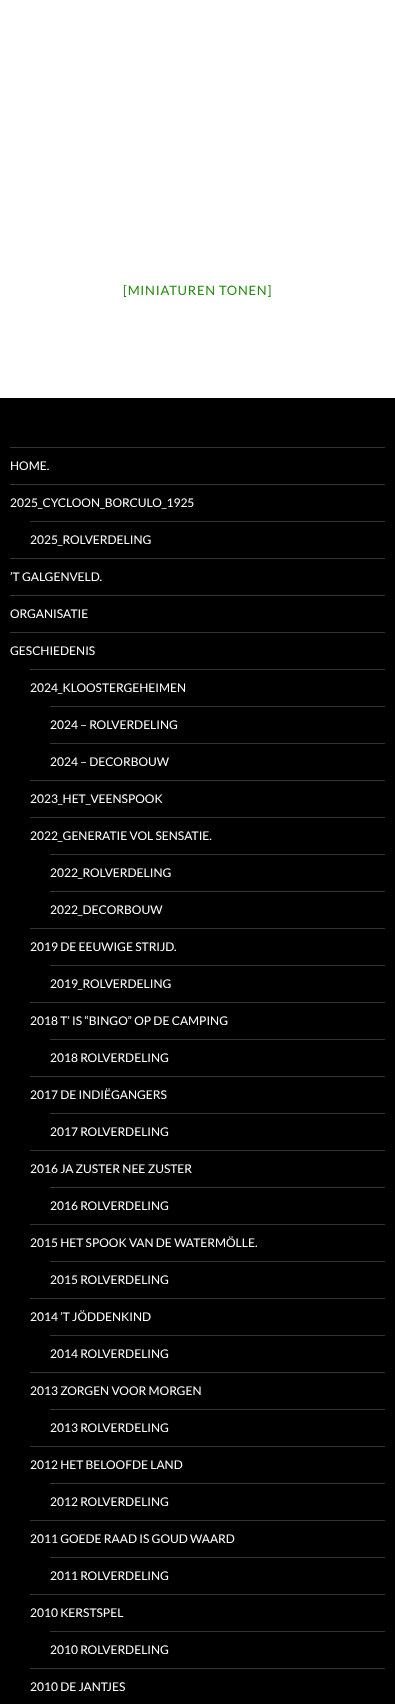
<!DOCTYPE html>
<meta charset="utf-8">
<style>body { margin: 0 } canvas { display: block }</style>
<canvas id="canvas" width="395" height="1704"></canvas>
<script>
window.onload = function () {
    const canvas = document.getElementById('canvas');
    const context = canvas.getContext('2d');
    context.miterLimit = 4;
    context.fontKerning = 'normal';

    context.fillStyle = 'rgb(255, 255, 255)';
    context.fillRect(0, 0, 395, 1704);
    context.fillStyle = 'rgb(0, 0, 0)';
    context.fillRect(0, 398, 395, 1306);
    context.fillStyle = 'rgb(51, 51, 51)';
    context.fillRect(10, 447, 375, 1);
    context.fillRect(10, 484, 375, 1);
    context.fillRect(30, 521, 355, 1);
    context.fillRect(10, 558, 375, 1);
    context.fillRect(10, 595, 375, 1);
    context.fillRect(10, 632, 375, 1);
    context.fillRect(30, 669, 355, 1);
    context.fillRect(50, 706, 335, 1);
    context.fillRect(50, 743, 335, 1);
    context.fillRect(30, 780, 355, 1);
    context.fillRect(30, 817, 355, 1);
    context.fillRect(50, 854, 335, 1);
    context.fillRect(50, 891, 335, 1);
    context.fillRect(30, 928, 355, 1);
    context.fillRect(50, 965, 335, 1);
    context.fillRect(30, 1002, 355, 1);
    context.fillRect(50, 1039, 335, 1);
    context.fillRect(30, 1076, 355, 1);
    context.fillRect(50, 1113, 335, 1);
    context.fillRect(30, 1150, 355, 1);
    context.fillRect(50, 1187, 335, 1);
    context.fillRect(30, 1224, 355, 1);
    context.fillRect(50, 1261, 335, 1);
    context.fillRect(30, 1298, 355, 1);
    context.fillRect(50, 1335, 335, 1);
    context.fillRect(30, 1372, 355, 1);
    context.fillRect(50, 1409, 335, 1);
    context.fillRect(30, 1446, 355, 1);
    context.fillRect(50, 1483, 335, 1);
    context.fillRect(30, 1520, 355, 1);
    context.fillRect(50, 1557, 335, 1);
    context.fillRect(30, 1594, 355, 1);
    context.fillRect(50, 1631, 335, 1);
    context.fillRect(30, 1668, 355, 1);
    context.letterSpacing = '0.75px';
    context.font = '13px Lato';
    context.fillStyle = 'rgb(36, 137, 13)';
    context.fillText('[MINIATUREN TONEN]', 123, 295);
    context.letterSpacing = '0px';
    context.font = '12px Lato';
    context.fillStyle = 'rgb(255, 255, 255)';
    context.fillText('HOME.', 10, 470);
    context.fillText('2025_CYCLOON_BORCULO_1925', 10, 507);
    context.fillText('2025_ROLVERDELING', 30, 544);
    context.fillText('’T GALGENVELD.', 10, 581);
    context.fillText('ORGANISATIE', 10, 618);
    context.fillText('GESCHIEDENIS', 10, 655);
    context.fillText('2024_KLOOSTERGEHEIMEN', 30, 692);
    context.fillText('2024 – ROLVERDELING', 50, 729);
    context.fillText('2024 – DECORBOUW', 50, 766);
    context.fillText('2023_HET_VEENSPOOK', 30, 803);
    context.fillText('2022_GENERATIE VOL SENSATIE.', 30, 840);
    context.fillText('2022_ROLVERDELING', 50, 877);
    context.fillText('2022_DECORBOUW', 50, 914);
    context.fillText('2019 DE EEUWIGE STRIJD.', 30, 951);
    context.fillText('2019_ROLVERDELING', 50, 988);
    context.fillText('2018 T’ IS “BINGO” OP DE CAMPING', 30, 1025);
    context.fillText('2018 ROLVERDELING', 50, 1062);
    context.fillText('2017 DE INDIËGANGERS', 30, 1099);
    context.fillText('2017 ROLVERDELING', 50, 1136);
    context.fillText('2016 JA ZUSTER NEE ZUSTER', 30, 1173);
    context.fillText('2016 ROLVERDELING', 50, 1210);
    context.fillText('2015 HET SPOOK VAN DE WATERMÖLLE.', 30, 1247);
    context.fillText('2015 ROLVERDELING', 50, 1284);
    context.fillText('2014 ’T JÖDDENKIND', 30, 1321);
    context.fillText('2014 ROLVERDELING', 50, 1358);
    context.fillText('2013 ZORGEN VOOR MORGEN', 30, 1395);
    context.fillText('2013 ROLVERDELING', 50, 1432);
    context.fillText('2012 HET BELOOFDE LAND', 30, 1469);
    context.fillText('2012 ROLVERDELING', 50, 1506);
    context.fillText('2011 GOEDE RAAD IS GOUD WAARD', 30, 1543);
    context.fillText('2011 ROLVERDELING', 50, 1580);
    context.fillText('2010 KERSTSPEL', 30, 1617);
    context.fillText('2010 ROLVERDELING', 50, 1654);
    context.fillText('2010 DE JANTJES', 30, 1691);
};
</script>
